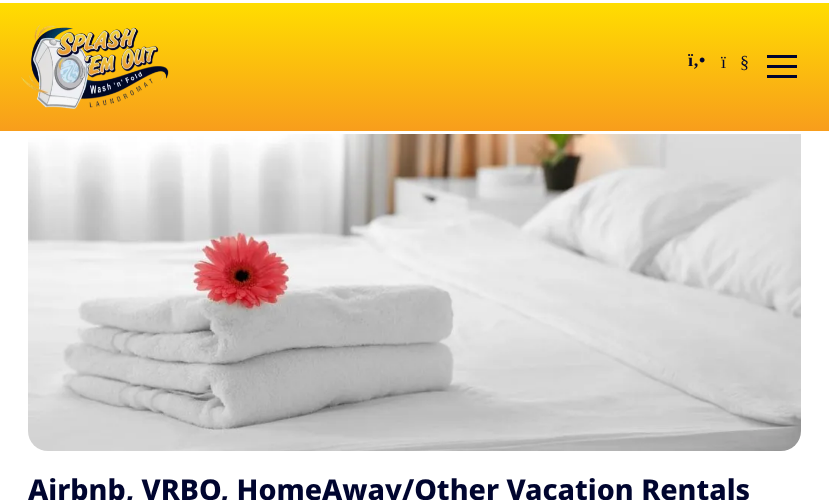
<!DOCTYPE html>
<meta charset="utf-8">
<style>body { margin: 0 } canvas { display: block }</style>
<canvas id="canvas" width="829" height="500"></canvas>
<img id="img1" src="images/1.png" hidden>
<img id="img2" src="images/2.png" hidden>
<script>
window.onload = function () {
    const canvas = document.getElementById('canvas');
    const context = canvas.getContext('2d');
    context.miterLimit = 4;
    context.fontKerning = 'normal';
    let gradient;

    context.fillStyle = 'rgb(255, 255, 255)';
    context.fillRect(0, 0, 829, 500);
    gradient = context.createLinearGradient(415, 3, 415, 131);
    gradient.addColorStop(0, 'rgb(255, 221, 0)');
    gradient.addColorStop(1, 'rgb(248, 157, 28)');
    context.fillStyle = gradient;
    context.fillRect(0, 3, 829, 128);
    context.drawImage(document.getElementById('img1'), 21, 24, 148, 85);
    context.fillStyle = 'rgb(0, 5, 47)';
    context.fillRect(767, 55, 30, 3);
    context.fillRect(767, 65, 30, 3);
    context.fillRect(767, 75, 30, 3);
    context.drawImage(document.getElementById('img2'), 28, 134, 773, 317);
    context.font = 'bold 18px Liberation Serif';
    context.fillText('ï‚•', 688, 66);
    context.font = '18px Liberation Serif';
    context.fillText('ï', 721, 68);
    context.fillText('§', 740, 68);
    context.font = '800 28.65px Noto Sans';
    context.fillText('Airbnb, VRBO, HomeAway/Other Vacation Rentals', 28, 500);
};
</script>
